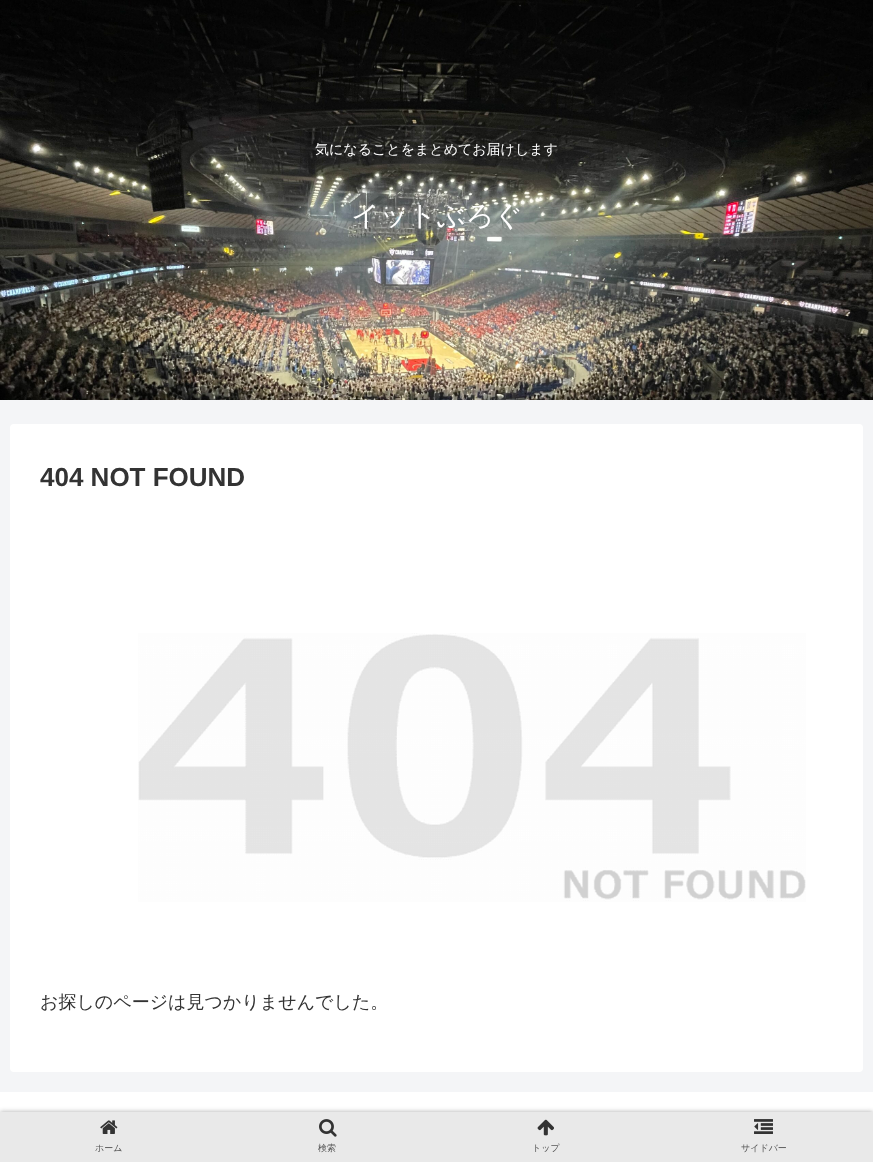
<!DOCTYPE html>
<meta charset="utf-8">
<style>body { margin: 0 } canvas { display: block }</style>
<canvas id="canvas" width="873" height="1162"></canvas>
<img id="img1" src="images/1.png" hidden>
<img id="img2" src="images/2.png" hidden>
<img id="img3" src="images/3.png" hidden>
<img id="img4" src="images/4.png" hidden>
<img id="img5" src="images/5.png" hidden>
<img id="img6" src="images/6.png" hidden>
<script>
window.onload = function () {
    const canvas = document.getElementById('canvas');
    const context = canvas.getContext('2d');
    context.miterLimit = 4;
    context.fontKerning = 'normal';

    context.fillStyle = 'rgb(244, 245, 247)';
    context.fillRect(0, 0, 873, 1162);
    context.drawImage(document.getElementById('img1'), 0, 0, 873, 400);
    context.fillStyle = 'rgb(255, 255, 255)';
    context.beginPath();
    context.roundRect(10, 424, 853, 648, 4);
    context.fill();
    context.drawImage(document.getElementById('img2'), 138, 633, 668, 269);
    context.fillRect(0, 1092, 873, 20);
    context.fillStyle = 'rgb(169, 169, 169)';
    context.filter = 'blur(2.5px)';
    context.beginPath();
    context.rect(0, 1112, 873, 50);
    context.fill();
    context.filter = 'none';
    context.fillStyle = 'rgb(233, 233, 233)';
    context.fillRect(0, 1112, 873, 50);
    context.drawImage(document.getElementById('img3'), 100, 1120, 18, 14);
    context.drawImage(document.getElementById('img4'), 319, 1119, 18, 18);
    context.drawImage(document.getElementById('img5'), 537, 1119, 17, 17);
    context.drawImage(document.getElementById('img6'), 754, 1119, 19, 15);
    context.font = '500 14px WenQuanYi Zen Hei';
    context.fillStyle = 'rgb(255, 255, 255)';
    context.fillText('気になることをまとめてお届けします', 315, 154);
    context.font = '500 28px WenQuanYi Zen Hei';
    context.fillText('イットぶろぐ', 351, 225);
    context.font = 'bold 26px Liberation Sans';
    context.fillStyle = 'rgb(51, 51, 51)';
    context.fillText('404 NOT FOUND', 40, 486);
    context.font = '500 18px WenQuanYi Zen Hei';
    context.fillText('お探しのページは見つかりませんでした。', 40, 1008);
    context.font = '500 9px WenQuanYi Zen Hei';
    context.fillStyle = 'rgb(87, 87, 87)';
    context.fillText('ホーム', 95, 1151);
    context.fillText('検索', 318, 1151);
    context.fillText('トップ', 532, 1151);
    context.fillText('サイドバー', 741, 1151);
};
</script>
